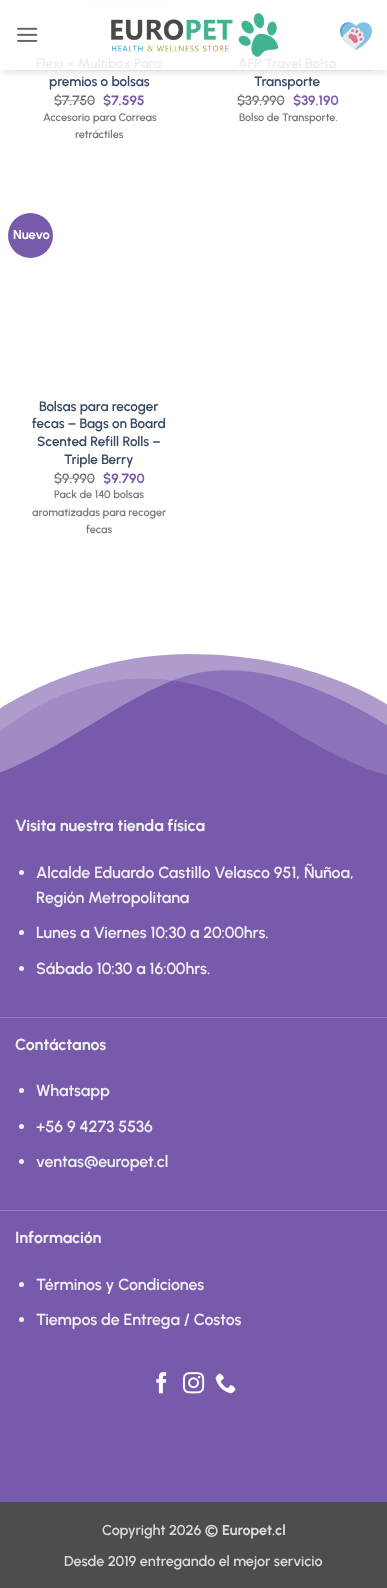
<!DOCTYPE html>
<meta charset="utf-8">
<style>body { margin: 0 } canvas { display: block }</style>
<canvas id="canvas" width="387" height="1588"></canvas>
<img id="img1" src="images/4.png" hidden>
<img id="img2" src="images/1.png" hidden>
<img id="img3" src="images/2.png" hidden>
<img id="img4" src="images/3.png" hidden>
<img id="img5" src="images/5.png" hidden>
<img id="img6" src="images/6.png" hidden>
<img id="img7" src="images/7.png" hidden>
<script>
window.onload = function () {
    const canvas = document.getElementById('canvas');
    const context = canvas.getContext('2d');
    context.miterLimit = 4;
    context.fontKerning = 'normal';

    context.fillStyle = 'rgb(255, 255, 255)';
    context.fillRect(0, 0, 387, 1588);
    context.drawImage(document.getElementById('img1'), 80, 0, 87, 7);
    context.save();
    context.beginPath();
    context.rect(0, 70, 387, 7);
    context.clip();
    context.fillStyle = 'rgba(0, 0, 0, 0.15)';
    context.filter = 'blur(5px)';
    context.beginPath();
    context.rect(1, 1, 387, 70);
    context.fill();
    context.filter = 'none';
    context.restore();
    context.drawImage(document.getElementById('img2'), 17, 27, 21, 15);
    context.drawImage(document.getElementById('img3'), 111, 13, 167, 44);
    context.drawImage(document.getElementById('img4'), 340, 22, 32, 28);
    context.fillStyle = 'rgb(223, 223, 223)';
    context.fillRect(15, 70, 357, 1);
    context.fillStyle = 'rgb(120, 90, 172)';
    context.beginPath();
    context.arc(30.5, 235.5, 22.5, 0, 2 * Math.PI);
    context.fill();
    context.fillRect(0, 654, 387, 848);
    context.save();
    context.beginPath();
    context.rect(0, 637, 387, 160);
    context.clip();
    context.fillStyle = 'rgba(255, 255, 255, 0.15)';
    context.beginPath();
    context.moveTo(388, 775);
    context.bezierCurveTo(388, 775, 353, 770, 271, 718);
    context.bezierCurveTo(170, 654, 71, 674, -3, 734);
    context.lineTo(-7, 689);
    context.lineTo(-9, 631);
    context.lineTo(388, 631);
    context.closePath();
    context.fill();
    context.restore();
    context.fillStyle = 'rgba(255, 255, 255, 0.3)';
    context.beginPath();
    context.moveTo(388, 726);
    context.bezierCurveTo(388, 726, 282, 653, 193, 674);
    context.bezierCurveTo(132, 689, 65, 750, -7, 775);
    context.lineTo(-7, 638);
    context.lineTo(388, 638);
    context.closePath();
    context.fill();
    context.fillStyle = 'rgb(255, 255, 255)';
    context.beginPath();
    context.moveTo(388, 705);
    context.bezierCurveTo(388, 705, 314, 654, 190, 654);
    context.bezierCurveTo(77, 654, -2, 710, -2, 710);
    context.lineTo(-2, 638);
    context.lineTo(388, 638);
    context.closePath();
    context.fill();
    context.fillStyle = 'rgb(241, 241, 241)';
    context.beginPath();
    context.arc(21.5, 872.5, 2.5, 0, 2 * Math.PI);
    context.fill();
    context.beginPath();
    context.arc(21.5, 932.5, 2.5, 0, 2 * Math.PI);
    context.fill();
    context.beginPath();
    context.arc(21.5, 968.5, 2.5, 0, 2 * Math.PI);
    context.fill();
    context.fillStyle = 'rgb(147, 123, 189)';
    context.fillRect(0, 1017, 387, 1);
    context.fillStyle = 'rgb(241, 241, 241)';
    context.beginPath();
    context.arc(21.5, 1090.5, 2.5, 0, 2 * Math.PI);
    context.fill();
    context.beginPath();
    context.arc(21.5, 1126.5, 2.5, 0, 2 * Math.PI);
    context.fill();
    context.beginPath();
    context.arc(21.5, 1161.5, 2.5, 0, 2 * Math.PI);
    context.fill();
    context.fillStyle = 'rgb(147, 123, 189)';
    context.fillRect(0, 1210, 387, 1);
    context.fillStyle = 'rgb(241, 241, 241)';
    context.beginPath();
    context.arc(21.5, 1284.5, 2.5, 0, 2 * Math.PI);
    context.fill();
    context.beginPath();
    context.arc(21.5, 1319.5, 2.5, 0, 2 * Math.PI);
    context.fill();
    context.drawImage(document.getElementById('img5'), 156, 1372, 11, 22);
    context.drawImage(document.getElementById('img6'), 183, 1372, 22, 22);
    context.drawImage(document.getElementById('img7'), 215, 1373, 21, 21);
    context.fillStyle = 'rgb(77, 77, 77)';
    context.fillRect(0, 1502, 387, 86);
    context.font = '600 13.5px Urbanist';
    context.fillStyle = 'rgb(235, 237, 239)';
    context.fillText('Flexi – Multibox Para', 36, 68);
    context.fillStyle = 'rgb(51, 72, 98)';
    context.fillText('premios o bolsas', 49, 86);
    context.fillStyle = 'rgb(112, 112, 112)';
    context.fillText('$7.750', 54, 105);
    context.fillStyle = 'rgb(173, 173, 173)';
    context.fillRect(54, 100, 41, 1);
    context.font = 'bold 13.5px Urbanist';
    context.fillStyle = 'rgb(120, 90, 172)';
    context.fillText('$7.595', 103, 105);
    context.font = '600 10.9px Urbanist';
    context.fillStyle = 'rgb(119, 119, 119)';
    context.fillText('Accesorio para Correas', 43, 121);
    context.fillText('retráctiles', 75, 138);
    context.font = '600 13.5px Urbanist';
    context.fillStyle = 'rgb(235, 237, 239)';
    context.fillText('AFP Travel Bolso', 238, 68);
    context.fillStyle = 'rgb(51, 72, 98)';
    context.fillText('Transporte', 254, 86);
    context.fillStyle = 'rgb(112, 112, 112)';
    context.fillText('$39.990', 237, 105);
    context.fillStyle = 'rgb(173, 173, 173)';
    context.fillRect(237, 100, 48, 1);
    context.font = 'bold 13.5px Urbanist';
    context.fillStyle = 'rgb(120, 90, 172)';
    context.fillText('$39.190', 293, 105);
    context.font = '600 10.9px Urbanist';
    context.fillStyle = 'rgb(119, 119, 119)';
    context.fillText('Bolso de Transporte.', 239, 121);
    context.font = 'bold 13px Urbanist';
    context.fillStyle = 'rgb(255, 255, 255)';
    context.fillText('Nuevo', 13, 239);
    context.font = '600 13.5px Urbanist';
    context.fillStyle = 'rgb(51, 72, 98)';
    context.fillText('Bolsas para recoger', 39, 411);
    context.fillText('fecas – Bags on Board', 32, 428);
    context.fillText('Scented Refill Rolls –', 37, 446);
    context.fillText('Triple Berry', 64, 464);
    context.fillStyle = 'rgb(112, 112, 112)';
    context.fillText('$9.990', 54, 483);
    context.fillStyle = 'rgb(173, 173, 173)';
    context.fillRect(54, 478, 41, 1);
    context.font = 'bold 13.5px Urbanist';
    context.fillStyle = 'rgb(120, 90, 172)';
    context.fillText('$9.790', 103, 483);
    context.font = '600 10.9px Urbanist';
    context.fillStyle = 'rgb(119, 119, 119)';
    context.fillText('Pack de 140 bolsas', 54, 498);
    context.fillText('aromatizadas para recoger', 32, 516);
    context.fillText('fecas', 86, 533);
    context.font = 'bold 16px Urbanist';
    context.fillStyle = 'rgb(241, 241, 241)';
    context.fillText('Visita nuestra tienda física', 15, 831);
    context.font = '600 16px Urbanist';
    context.fillText('Alcalde Eduardo Castillo Velasco 951, Ñuñoa,', 36, 878);
    context.fillText('Región Metropolitana', 36, 903);
    context.fillText('Lunes a Viernes 10:30 a 20:00hrs.', 36, 938);
    context.fillText('Sábado 10:30 a 16:00hrs.', 36, 974);
    context.font = 'bold 16px Urbanist';
    context.fillText('Contáctanos', 15, 1050);
    context.font = '600 16px Urbanist';
    context.fillText('Whatsapp', 36, 1096);
    context.fillText('+56 9 4273 5536', 36, 1132);
    context.fillText('ventas@europet.cl', 36, 1167);
    context.font = 'bold 16px Urbanist';
    context.fillText('Información', 15, 1243);
    context.font = '600 16px Urbanist';
    context.fillText('Términos y Condiciones', 36, 1290);
    context.fillText('Tiempos de Entrega / Costos', 36, 1325);
    context.font = '600 14.4px Urbanist';
    context.fillStyle = 'rgb(219, 219, 219)';
    context.fillText('Copyright 2026 ©', 102, 1535);
    context.font = 'bold 14.4px Urbanist';
    context.fillText('Europet.cl', 222, 1535);
    context.font = '600 14.4px Urbanist';
    context.fillText('Desde 2019 entregando el mejor servicio', 64, 1566);
};
</script>
